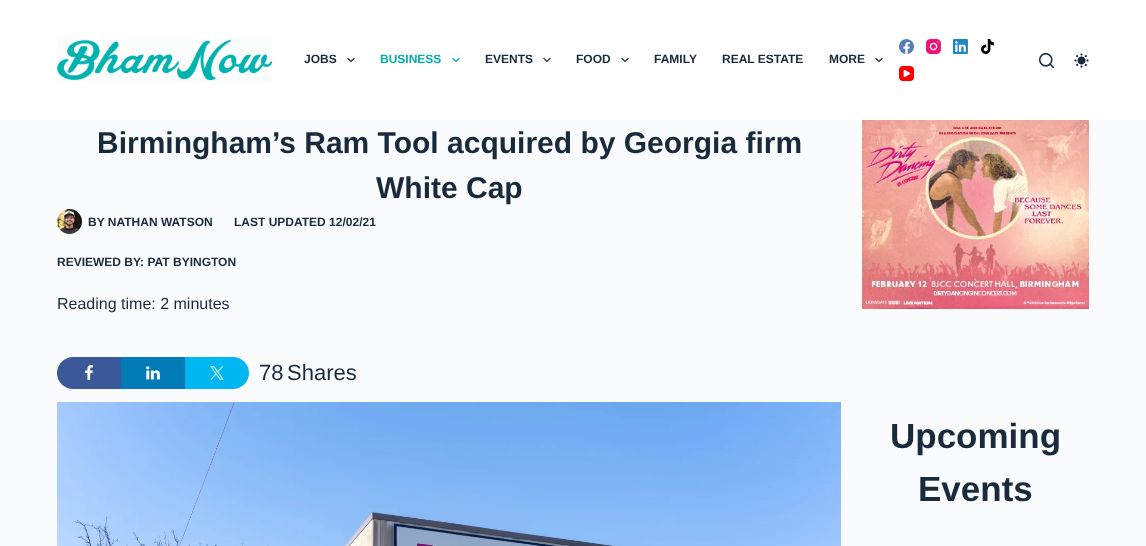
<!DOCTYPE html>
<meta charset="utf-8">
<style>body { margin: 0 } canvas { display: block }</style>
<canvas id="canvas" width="1146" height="546"></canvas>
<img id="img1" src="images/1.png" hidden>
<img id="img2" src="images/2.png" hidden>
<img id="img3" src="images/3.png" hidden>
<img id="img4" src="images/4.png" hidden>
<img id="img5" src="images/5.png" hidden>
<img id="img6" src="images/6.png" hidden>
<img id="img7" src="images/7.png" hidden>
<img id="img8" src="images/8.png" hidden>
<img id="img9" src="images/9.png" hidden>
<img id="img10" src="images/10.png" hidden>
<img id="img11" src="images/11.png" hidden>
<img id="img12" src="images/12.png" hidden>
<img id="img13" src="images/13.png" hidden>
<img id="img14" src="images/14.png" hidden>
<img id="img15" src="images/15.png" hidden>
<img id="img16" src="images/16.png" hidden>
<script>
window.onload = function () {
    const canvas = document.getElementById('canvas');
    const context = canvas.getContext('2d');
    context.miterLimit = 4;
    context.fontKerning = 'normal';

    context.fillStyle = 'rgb(250, 251, 252)';
    context.fillRect(0, 0, 1146, 546);
    context.fillStyle = 'rgb(255, 255, 255)';
    context.fillRect(0, 0, 1146, 120);
    context.drawImage(document.getElementById('img1'), 57, 39, 215, 42);
    context.drawImage(document.getElementById('img2'), 347, 57, 8, 6);
    context.drawImage(document.getElementById('img3'), 452, 57, 8, 6);
    context.drawImage(document.getElementById('img2'), 543, 57, 8, 6);
    context.drawImage(document.getElementById('img2'), 621, 57, 8, 6);
    context.drawImage(document.getElementById('img2'), 875, 57, 8, 6);
    context.drawImage(document.getElementById('img4'), 899, 39, 15, 15);
    context.drawImage(document.getElementById('img5'), 926, 39, 15, 15);
    context.drawImage(document.getElementById('img6'), 953, 39, 15, 15);
    context.drawImage(document.getElementById('img7'), 981, 39, 13, 15);
    context.drawImage(document.getElementById('img8'), 899, 66, 15, 15);
    context.drawImage(document.getElementById('img9'), 1039, 53, 15, 15);
    context.drawImage(document.getElementById('img10'), 1074, 53, 15, 15);
    context.drawImage(document.getElementById('img11'), 57, 209, 25, 25);
    context.fillStyle = 'rgb(59, 89, 152)';
    context.beginPath();
    context.roundRect(57, 357, 64, 32, [16, 0, 0, 16]);
    context.fill();
    context.drawImage(document.getElementById('img12'), 85, 365, 8, 15);
    context.fillStyle = 'rgb(0, 123, 182)';
    context.fillRect(121, 357, 64, 32);
    context.drawImage(document.getElementById('img13'), 146, 366, 14, 14);
    context.fillStyle = 'rgb(0, 182, 241)';
    context.beginPath();
    context.roundRect(185, 357, 64, 32, [0, 16, 16, 0]);
    context.fill();
    context.drawImage(document.getElementById('img14'), 210, 366, 14, 14);
    context.drawImage(document.getElementById('img15'), 57, 402, 784, 144);
    context.drawImage(document.getElementById('img16'), 862, 120, 227, 189);
    context.font = 'bold 12px Liberation Sans';
    context.fillStyle = 'rgb(25, 42, 61)';
    context.fillText('JOBS', 304, 63);
    context.fillStyle = 'rgb(0, 176, 173)';
    context.fillText('BUSINESS', 380, 63);
    context.fillStyle = 'rgb(25, 42, 61)';
    context.fillText('EVENTS', 485, 63);
    context.fillText('FOOD', 576, 63);
    context.fillText('FAMILY', 654, 63);
    context.fillText('REAL ESTATE', 722, 63);
    context.fillText('MORE', 829, 63);
    context.font = 'bold 30px Liberation Sans';
    context.fillText('Birmingham’s Ram Tool acquired by Georgia firm', 97, 153);
    context.fillText('White Cap', 376, 198);
    context.font = 'bold 12px Liberation Sans';
    context.fillText('BY NATHAN WATSON', 88, 226);
    context.fillText('LAST UPDATED 12/02/21', 234, 226);
    context.fillText('REVIEWED BY: PAT BYINGTON', 57, 266);
    context.font = '16px Liberation Sans';
    context.fillText('Reading time: 2 minutes', 57, 309);
    context.font = '22px Liberation Sans';
    context.fillText('78', 259, 380);
    context.fillText('Shares', 287, 380);
    context.font = 'bold 35px Liberation Sans';
    context.fillText('Upcoming', 890, 448);
    context.fillText('Events', 918, 501);
};
</script>
